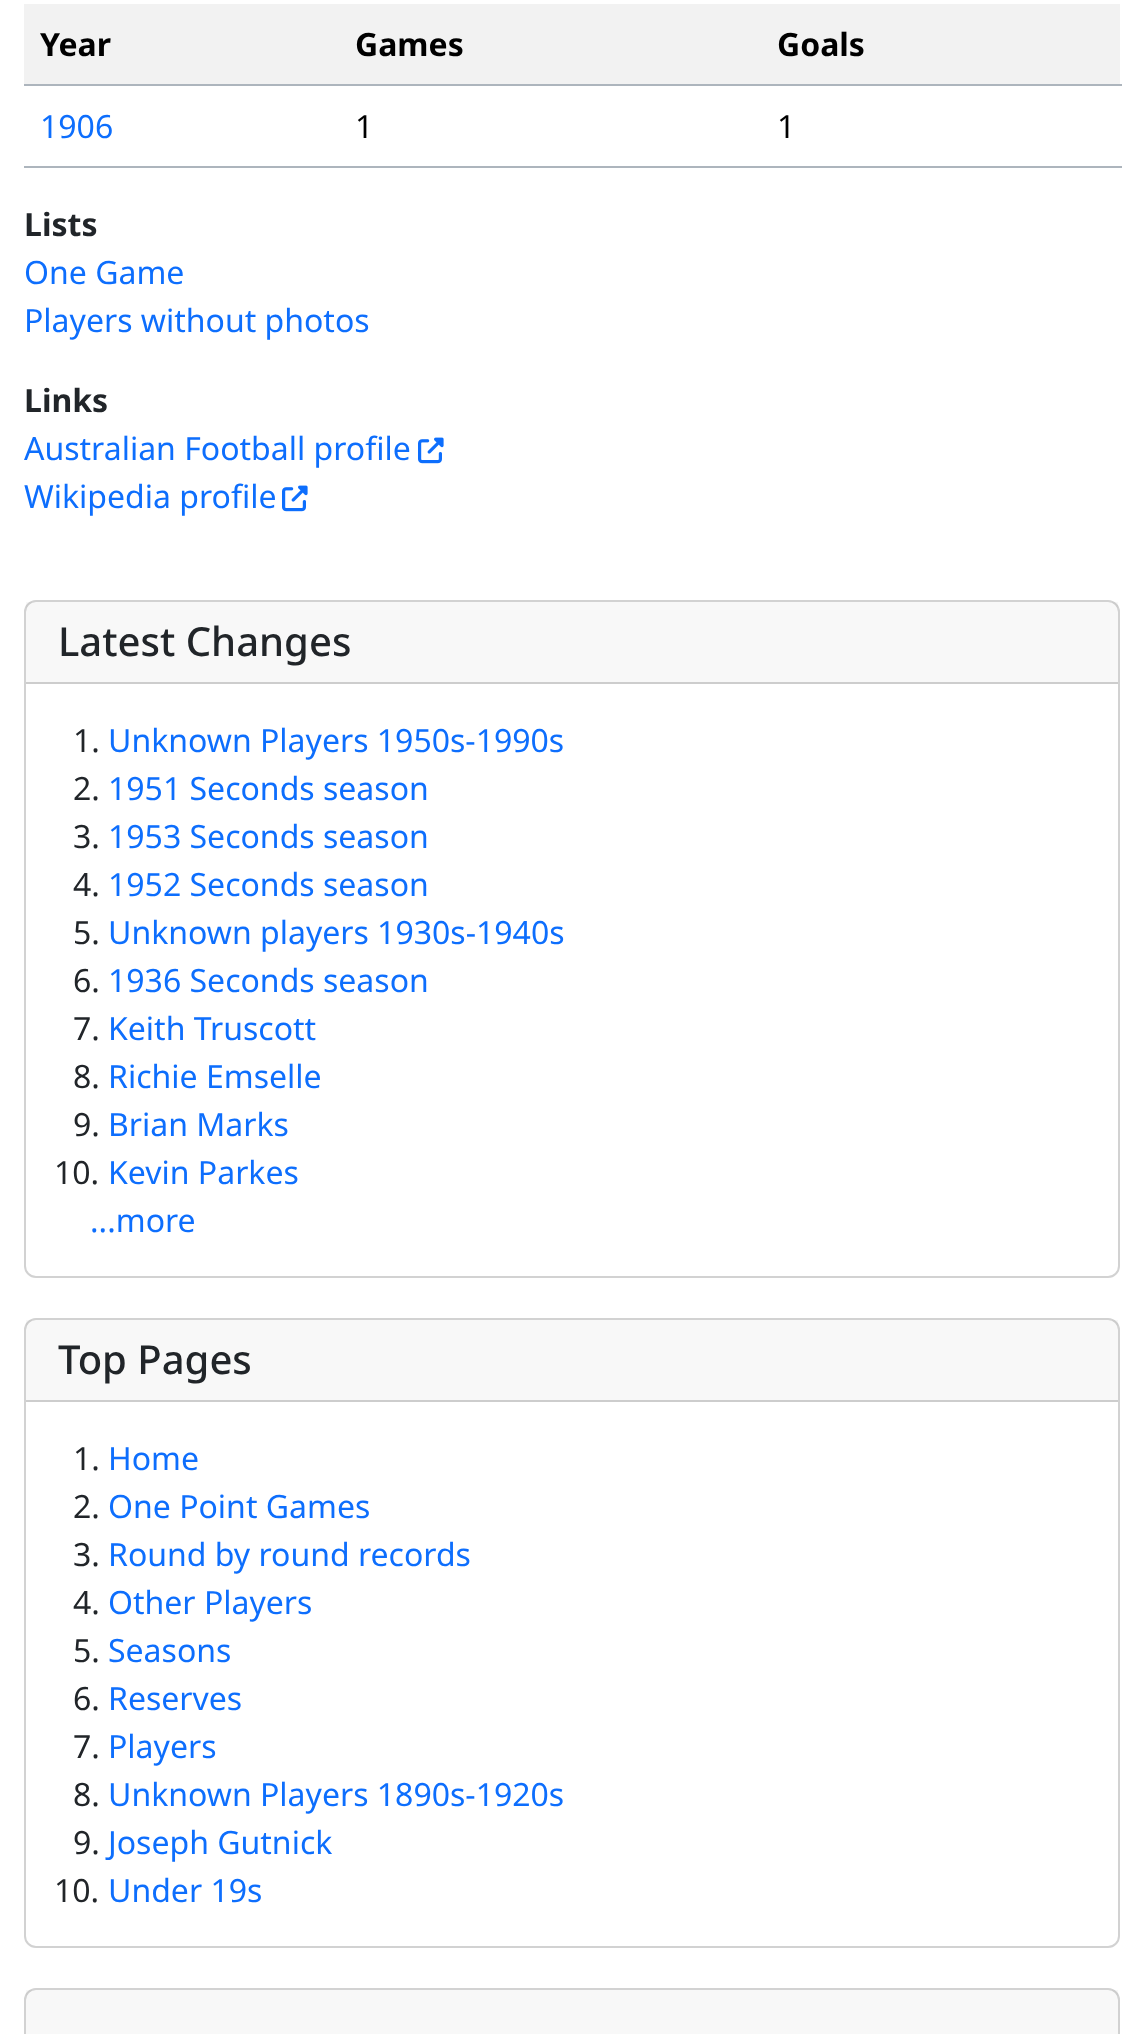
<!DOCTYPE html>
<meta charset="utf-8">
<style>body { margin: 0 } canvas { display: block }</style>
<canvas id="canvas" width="1143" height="2034"></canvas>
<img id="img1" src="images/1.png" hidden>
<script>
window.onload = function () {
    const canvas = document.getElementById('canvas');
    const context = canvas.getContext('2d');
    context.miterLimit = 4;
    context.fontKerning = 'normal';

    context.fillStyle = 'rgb(255, 255, 255)';
    context.fillRect(0, 0, 1143, 2034);
    context.fillStyle = 'rgb(242, 242, 242)';
    context.fillRect(24, 4, 1096, 80);
    context.fillStyle = 'rgb(173, 181, 189)';
    context.fillRect(24, 84, 1098, 2);
    context.fillRect(24, 166, 1098, 2);
    context.drawImage(document.getElementById('img1'), 418, 437, 26, 27);
    context.drawImage(document.getElementById('img1'), 282, 485, 26, 27);
    context.beginPath();
    context.roundRect(25, 601, 1094, 676, 11);
    context.strokeStyle = 'rgb(210, 210, 210)';
    context.lineWidth = 2;
    context.stroke();
    context.fillStyle = 'rgba(33, 37, 41, 0.03)';
    context.fillRect(26, 602, 1092, 80);
    context.fillStyle = 'rgb(205, 205, 205)';
    context.fillRect(26, 682, 1092, 2);
    context.beginPath();
    context.roundRect(25, 1319, 1094, 628, 11);
    context.stroke();
    context.fillStyle = 'rgba(33, 37, 41, 0.03)';
    context.fillRect(26, 1320, 1092, 80);
    context.fillStyle = 'rgb(205, 205, 205)';
    context.fillRect(26, 1400, 1092, 2);
    context.beginPath();
    context.roundRect(25, 1989, 1094, 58, 11);
    context.stroke();
    context.fillStyle = 'rgba(33, 37, 41, 0.03)';
    context.fillRect(26, 1990, 1092, 44);
    context.font = 'bold 32px Noto Sans';
    context.fillStyle = 'rgb(0, 0, 0)';
    context.fillText('Year', 40, 56);
    context.fillText('Games', 355, 56);
    context.fillText('Goals', 777, 56);
    context.font = '32px Noto Sans';
    context.fillStyle = 'rgb(13, 110, 253)';
    context.fillText('1906', 40, 138);
    context.fillStyle = 'rgb(0, 0, 0)';
    context.fillText('1', 355, 138);
    context.fillText('1', 777, 138);
    context.font = 'bold 32px Noto Sans';
    context.fillStyle = 'rgb(33, 37, 41)';
    context.fillText('Lists', 24, 236);
    context.font = '32px Noto Sans';
    context.fillStyle = 'rgb(13, 110, 253)';
    context.fillText('One Game', 24, 284);
    context.fillText('Players without photos', 24, 332);
    context.font = 'bold 32px Noto Sans';
    context.fillStyle = 'rgb(33, 37, 41)';
    context.fillText('Links', 24, 412);
    context.font = '32px Noto Sans';
    context.fillStyle = 'rgb(13, 110, 253)';
    context.fillText('Australian Football profile', 24, 460);
    context.fillText('Wikipedia profile', 24, 508);
    context.font = '500 40px Noto Sans';
    context.fillStyle = 'rgb(33, 37, 41)';
    context.fillText('Latest Changes', 58, 656);
    context.font = '32px Noto Sans';
    context.fillText('1.', 73, 752);
    context.fillStyle = 'rgb(13, 110, 253)';
    context.fillText('Unknown Players 1950s-1990s', 108, 752);
    context.fillStyle = 'rgb(33, 37, 41)';
    context.fillText('2.', 73, 800);
    context.fillStyle = 'rgb(13, 110, 253)';
    context.fillText('1951 Seconds season', 108, 800);
    context.fillStyle = 'rgb(33, 37, 41)';
    context.fillText('3.', 73, 848);
    context.fillStyle = 'rgb(13, 110, 253)';
    context.fillText('1953 Seconds season', 108, 848);
    context.fillStyle = 'rgb(33, 37, 41)';
    context.fillText('4.', 73, 896);
    context.fillStyle = 'rgb(13, 110, 253)';
    context.fillText('1952 Seconds season', 108, 896);
    context.fillStyle = 'rgb(33, 37, 41)';
    context.fillText('5.', 73, 944);
    context.fillStyle = 'rgb(13, 110, 253)';
    context.fillText('Unknown players 1930s-1940s', 108, 944);
    context.fillStyle = 'rgb(33, 37, 41)';
    context.fillText('6.', 73, 992);
    context.fillStyle = 'rgb(13, 110, 253)';
    context.fillText('1936 Seconds season', 108, 992);
    context.fillStyle = 'rgb(33, 37, 41)';
    context.fillText('7.', 73, 1040);
    context.fillStyle = 'rgb(13, 110, 253)';
    context.fillText('Keith Truscott', 108, 1040);
    context.fillStyle = 'rgb(33, 37, 41)';
    context.fillText('8.', 73, 1088);
    context.fillStyle = 'rgb(13, 110, 253)';
    context.fillText('Richie Emselle', 108, 1088);
    context.fillStyle = 'rgb(33, 37, 41)';
    context.fillText('9.', 73, 1136);
    context.fillStyle = 'rgb(13, 110, 253)';
    context.fillText('Brian Marks', 108, 1136);
    context.fillStyle = 'rgb(33, 37, 41)';
    context.fillText('10.', 54, 1184);
    context.fillStyle = 'rgb(13, 110, 253)';
    context.fillText('Kevin Parkes', 108, 1184);
    context.fillText('...more', 90, 1232);
    context.font = '500 40px Noto Sans';
    context.fillStyle = 'rgb(33, 37, 41)';
    context.fillText('Top Pages', 58, 1374);
    context.font = '32px Noto Sans';
    context.fillText('1.', 73, 1470);
    context.fillStyle = 'rgb(13, 110, 253)';
    context.fillText('Home', 108, 1470);
    context.fillStyle = 'rgb(33, 37, 41)';
    context.fillText('2.', 73, 1518);
    context.fillStyle = 'rgb(13, 110, 253)';
    context.fillText('One Point Games', 108, 1518);
    context.fillStyle = 'rgb(33, 37, 41)';
    context.fillText('3.', 73, 1566);
    context.fillStyle = 'rgb(13, 110, 253)';
    context.fillText('Round by round records', 108, 1566);
    context.fillStyle = 'rgb(33, 37, 41)';
    context.fillText('4.', 73, 1614);
    context.fillStyle = 'rgb(13, 110, 253)';
    context.fillText('Other Players', 108, 1614);
    context.fillStyle = 'rgb(33, 37, 41)';
    context.fillText('5.', 73, 1662);
    context.fillStyle = 'rgb(13, 110, 253)';
    context.fillText('Seasons', 108, 1662);
    context.fillStyle = 'rgb(33, 37, 41)';
    context.fillText('6.', 73, 1710);
    context.fillStyle = 'rgb(13, 110, 253)';
    context.fillText('Reserves', 108, 1710);
    context.fillStyle = 'rgb(33, 37, 41)';
    context.fillText('7.', 73, 1758);
    context.fillStyle = 'rgb(13, 110, 253)';
    context.fillText('Players', 108, 1758);
    context.fillStyle = 'rgb(33, 37, 41)';
    context.fillText('8.', 73, 1806);
    context.fillStyle = 'rgb(13, 110, 253)';
    context.fillText('Unknown Players 1890s-1920s', 108, 1806);
    context.fillStyle = 'rgb(33, 37, 41)';
    context.fillText('9.', 73, 1854);
    context.fillStyle = 'rgb(13, 110, 253)';
    context.fillText('Joseph Gutnick', 108, 1854);
    context.fillStyle = 'rgb(33, 37, 41)';
    context.fillText('10.', 54, 1902);
    context.fillStyle = 'rgb(13, 110, 253)';
    context.fillText('Under 19s', 108, 1902);
};
</script>
